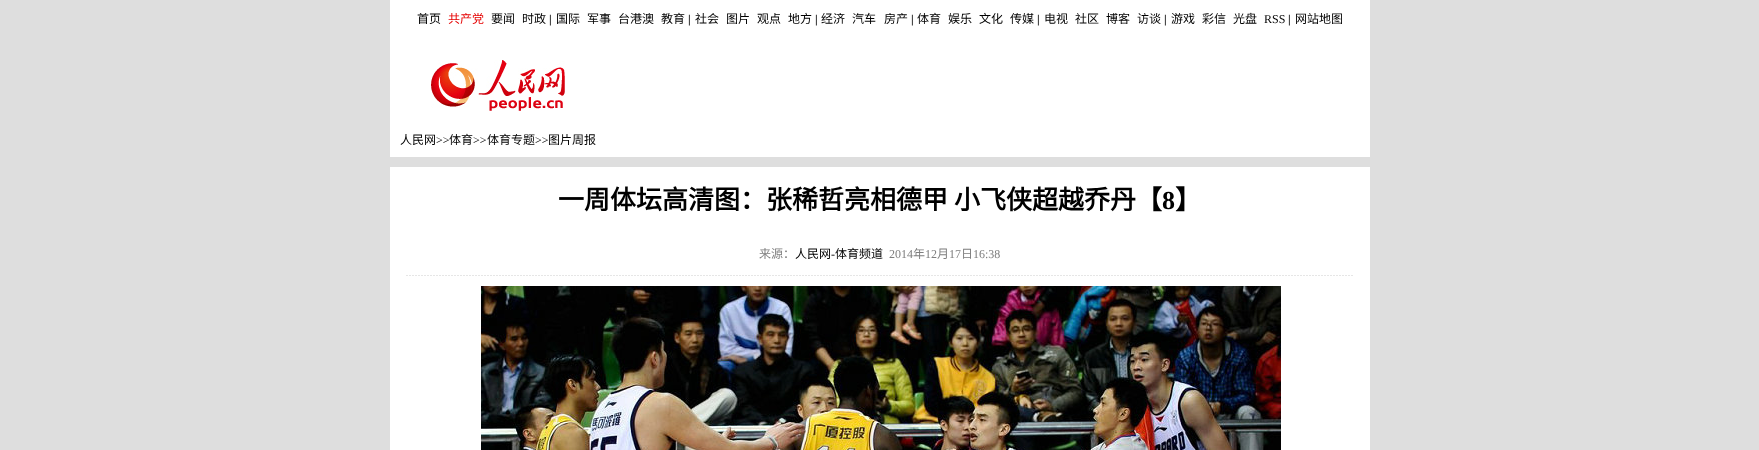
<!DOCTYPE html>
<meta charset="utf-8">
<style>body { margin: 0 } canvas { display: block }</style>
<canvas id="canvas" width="1759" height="450"></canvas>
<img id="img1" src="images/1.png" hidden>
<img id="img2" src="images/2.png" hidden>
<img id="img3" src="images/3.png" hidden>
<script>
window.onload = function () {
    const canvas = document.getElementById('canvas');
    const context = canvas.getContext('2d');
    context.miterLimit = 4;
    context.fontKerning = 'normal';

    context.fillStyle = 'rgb(222, 222, 222)';
    context.fillRect(0, 0, 1759, 450);
    context.fillStyle = 'rgb(255, 255, 255)';
    context.fillRect(390, 0, 980, 157);
    context.drawImage(document.getElementById('img1'), 431, 60, 134, 51);
    context.fillRect(390, 167, 980, 283);
    context.drawImage(document.getElementById('img2'), 406, 275, 947, 1);
    context.drawImage(document.getElementById('img3'), 481, 286, 800, 164);
    context.font = '12px Noto Sans CJK SC';
    context.fillStyle = 'rgb(0, 0, 0)';
    context.fillText('首页', 417, 23);
    context.fillStyle = 'rgb(229, 1, 0)';
    context.fillText('共产党', 448, 23);
    context.fillStyle = 'rgb(0, 0, 0)';
    context.fillText('要闻', 491, 23);
    context.fillText('时政', 522, 23);
    context.font = 'bold 12px Liberation Serif';
    context.fillText('|', 549, 23);
    context.font = '12px Noto Sans CJK SC';
    context.fillText('国际', 556, 23);
    context.fillText('军事', 587, 23);
    context.fillText('台港澳', 618, 23);
    context.fillText('教育', 661, 23);
    context.font = 'bold 12px Liberation Serif';
    context.fillText('|', 688, 23);
    context.font = '12px Noto Sans CJK SC';
    context.fillText('社会', 695, 23);
    context.fillText('图片', 726, 23);
    context.fillText('观点', 757, 23);
    context.fillText('地方', 788, 23);
    context.font = 'bold 12px Liberation Serif';
    context.fillText('|', 815, 23);
    context.font = '12px Noto Sans CJK SC';
    context.fillText('经济', 821, 23);
    context.fillText('汽车', 852, 23);
    context.fillText('房产', 884, 23);
    context.font = 'bold 12px Liberation Serif';
    context.fillText('|', 911, 23);
    context.font = '12px Noto Sans CJK SC';
    context.fillText('体育', 917, 23);
    context.fillText('娱乐', 948, 23);
    context.fillText('文化', 979, 23);
    context.fillText('传媒', 1010, 23);
    context.font = 'bold 12px Liberation Serif';
    context.fillText('|', 1037, 23);
    context.font = '12px Noto Sans CJK SC';
    context.fillText('电视', 1044, 23);
    context.fillText('社区', 1075, 23);
    context.fillText('博客', 1106, 23);
    context.fillText('访谈', 1137, 23);
    context.font = 'bold 12px Liberation Serif';
    context.fillText('|', 1164, 23);
    context.font = '12px Noto Sans CJK SC';
    context.fillText('游戏', 1171, 23);
    context.fillText('彩信', 1202, 23);
    context.fillText('光盘', 1233, 23);
    context.font = '12px Liberation Serif';
    context.fillText('RSS', 1264, 23);
    context.font = 'bold 12px Liberation Serif';
    context.fillText('|', 1288, 23);
    context.font = '12px Noto Sans CJK SC';
    context.fillText('网站地图', 1295, 23);
    context.fillText('人民网', 400, 144);
    context.font = '12px Liberation Serif';
    context.fillText('>>', 436, 144);
    context.font = '12px Noto Sans CJK SC';
    context.fillText('体育', 449, 144);
    context.font = '12px Liberation Serif';
    context.fillText('>>', 473, 144);
    context.font = '12px Noto Sans CJK SC';
    context.fillText('体育专题', 487, 144);
    context.font = '12px Liberation Serif';
    context.fillText('>>', 535, 144);
    context.font = '12px Noto Sans CJK SC';
    context.fillText('图片周报', 548, 144);
    context.font = 'bold 26px Noto Sans CJK SC';
    context.fillText('一周体坛高清图：张稀哲亮相德甲', 558, 209);
    context.fillText('小飞侠超越乔丹【', 954, 209);
    context.font = 'bold 26px Liberation Serif';
    context.fillText('8', 1162, 209);
    context.font = 'bold 26px Noto Sans CJK SC';
    context.fillText('】', 1175, 209);
    context.font = '12px Noto Sans CJK SC';
    context.fillStyle = 'rgb(126, 126, 126)';
    context.fillText('来源：', 759, 258);
    context.fillStyle = 'rgb(0, 0, 0)';
    context.fillText('人民网', 795, 258);
    context.font = '12px Liberation Serif';
    context.fillText('-', 831, 258);
    context.font = '12px Noto Sans CJK SC';
    context.fillText('体育频道', 835, 258);
    context.font = '12px Liberation Serif';
    context.fillStyle = 'rgb(126, 126, 126)';
    context.fillText('2014', 889, 258);
    context.font = '12px Noto Sans CJK SC';
    context.fillText('年', 913, 258);
    context.font = '12px Liberation Serif';
    context.fillText('12', 925, 258);
    context.font = '12px Noto Sans CJK SC';
    context.fillText('月', 937, 258);
    context.font = '12px Liberation Serif';
    context.fillText('17', 949, 258);
    context.font = '12px Noto Sans CJK SC';
    context.fillText('日', 961, 258);
    context.font = '12px Liberation Serif';
    context.fillText('16:38', 973, 258);
};
</script>
